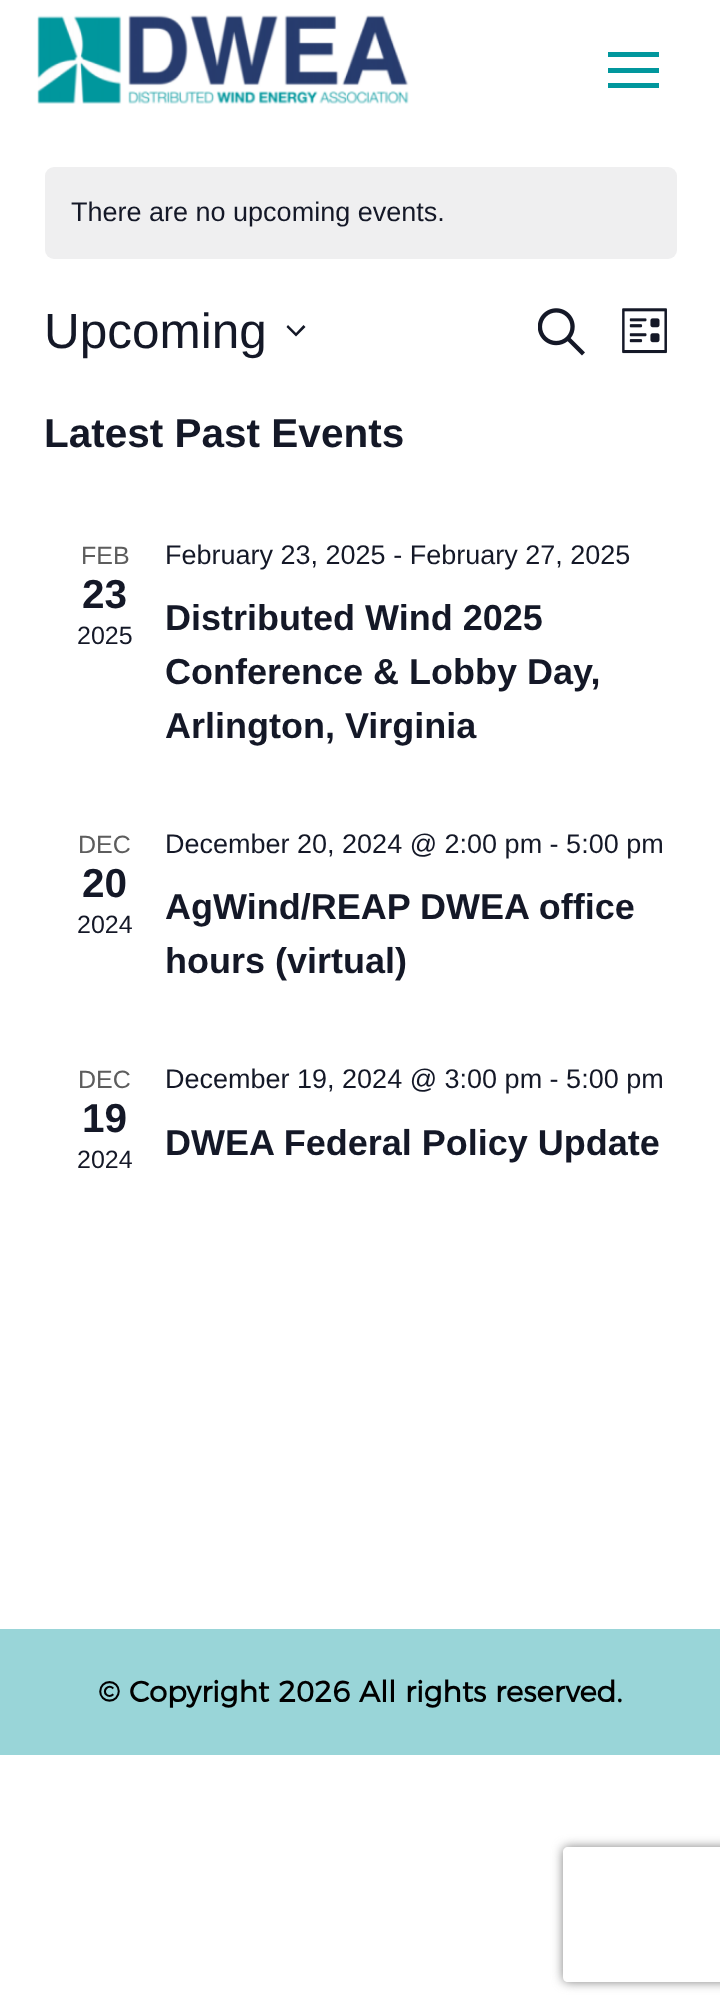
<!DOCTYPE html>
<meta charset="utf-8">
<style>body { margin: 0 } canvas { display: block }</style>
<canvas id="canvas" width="720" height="2012"></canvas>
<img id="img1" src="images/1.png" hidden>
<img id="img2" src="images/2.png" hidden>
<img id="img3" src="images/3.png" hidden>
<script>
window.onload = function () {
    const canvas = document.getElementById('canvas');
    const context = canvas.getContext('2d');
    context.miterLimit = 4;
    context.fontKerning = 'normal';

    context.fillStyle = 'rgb(255, 255, 255)';
    context.fillRect(0, 0, 720, 2012);
    context.drawImage(document.getElementById('img1'), 37, 15, 372, 89);
    context.fillStyle = 'rgb(1, 151, 157)';
    context.fillRect(608, 68, 51, 5);
    context.fillRect(608, 52, 51, 5);
    context.fillRect(608, 83, 51, 5);
    context.fillStyle = 'rgb(239, 239, 240)';
    context.beginPath();
    context.roundRect(45, 167, 632, 92, 9);
    context.fill();
    context.fillStyle = 'rgb(20, 24, 39)';
    context.beginPath();
    context.moveTo(288, 325);
    context.lineTo(296, 333);
    context.lineTo(303.5, 325);
    context.lineTo(305.5, 327);
    context.lineTo(296, 336.5);
    context.lineTo(286.5, 327);
    context.closePath();
    context.fill('evenodd');
    context.drawImage(document.getElementById('img2'), 538, 308, 47, 48);
    context.drawImage(document.getElementById('img3'), 622, 308, 45, 46);
    context.fillStyle = 'rgb(153, 213, 216)';
    context.fillRect(0, 1629, 720, 126);
    context.save();
    context.beginPath();
    context.moveTo(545, 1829);
    context.lineTo(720, 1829);
    context.lineTo(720, 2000);
    context.lineTo(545, 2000);
    context.closePath();
    context.moveTo(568, 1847);
    context.lineTo(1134, 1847);
    context.bezierCurveTo(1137, 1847, 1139, 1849, 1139, 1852);
    context.lineTo(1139, 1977);
    context.bezierCurveTo(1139, 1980, 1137, 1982, 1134, 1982);
    context.lineTo(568, 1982);
    context.bezierCurveTo(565, 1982, 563, 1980, 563, 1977);
    context.lineTo(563, 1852);
    context.bezierCurveTo(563, 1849, 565, 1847, 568, 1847);
    context.closePath();
    context.clip('evenodd');
    context.fillStyle = 'rgb(128, 128, 128)';
    context.filter = 'blur(5.5px)';
    context.beginPath();
    context.roundRect(563, 1847, 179, 135, 5);
    context.fill();
    context.filter = 'none';
    context.restore();
    context.font = '27px Liberation Sans';
    context.fillStyle = 'rgb(20, 24, 39)';
    context.fillText('There are no upcoming events.', 71, 221);
    context.font = '49.5px Liberation Sans';
    context.fillText('Upcoming', 44, 348);
    context.font = 'bold 40.5px Liberation Sans';
    context.fillText('Latest Past Events', 44, 447);
    context.font = '25px Liberation Sans';
    context.fillStyle = 'rgb(93, 93, 93)';
    context.fillText('FEB', 81, 564);
    context.font = 'bold 40.5px Liberation Sans';
    context.fillStyle = 'rgb(20, 24, 39)';
    context.fillText('23', 82, 608);
    context.font = '25px Liberation Sans';
    context.fillText('2025', 77, 644);
    context.font = '27px Liberation Sans';
    context.fillText('February 23, 2025 - February 27, 2025', 165, 564);
    context.font = 'bold 36px Liberation Sans';
    context.fillText('Distributed Wind 2025', 165, 630);
    context.fillText('Conference & Lobby Day,', 165, 684);
    context.fillText('Arlington, Virginia', 165, 738);
    context.font = '25px Liberation Sans';
    context.fillStyle = 'rgb(93, 93, 93)';
    context.fillText('DEC', 78, 853);
    context.font = 'bold 40.5px Liberation Sans';
    context.fillStyle = 'rgb(20, 24, 39)';
    context.fillText('20', 82, 897);
    context.font = '25px Liberation Sans';
    context.fillText('2024', 77, 933);
    context.font = '27px Liberation Sans';
    context.fillText('December 20, 2024 @ 2:00 pm - 5:00 pm', 165, 853);
    context.font = 'bold 36px Liberation Sans';
    context.fillText('AgWind/REAP DWEA office', 165, 919);
    context.fillText('hours (virtual)', 165, 973);
    context.font = '25px Liberation Sans';
    context.fillStyle = 'rgb(93, 93, 93)';
    context.fillText('DEC', 78, 1088);
    context.font = 'bold 40.5px Liberation Sans';
    context.fillStyle = 'rgb(20, 24, 39)';
    context.fillText('19', 82, 1132);
    context.font = '25px Liberation Sans';
    context.fillText('2024', 77, 1168);
    context.font = '27px Liberation Sans';
    context.fillText('December 19, 2024 @ 3:00 pm - 5:00 pm', 165, 1088);
    context.font = 'bold 36px Liberation Sans';
    context.fillText('DWEA Federal Policy Update', 165, 1155);
    context.font = 'bold 29.25px Montserrat';
    context.fillStyle = 'rgb(0, 0, 0)';
    context.fillText('© Copyright 2026 All rights reserved.', 98, 1702);
};
</script>
